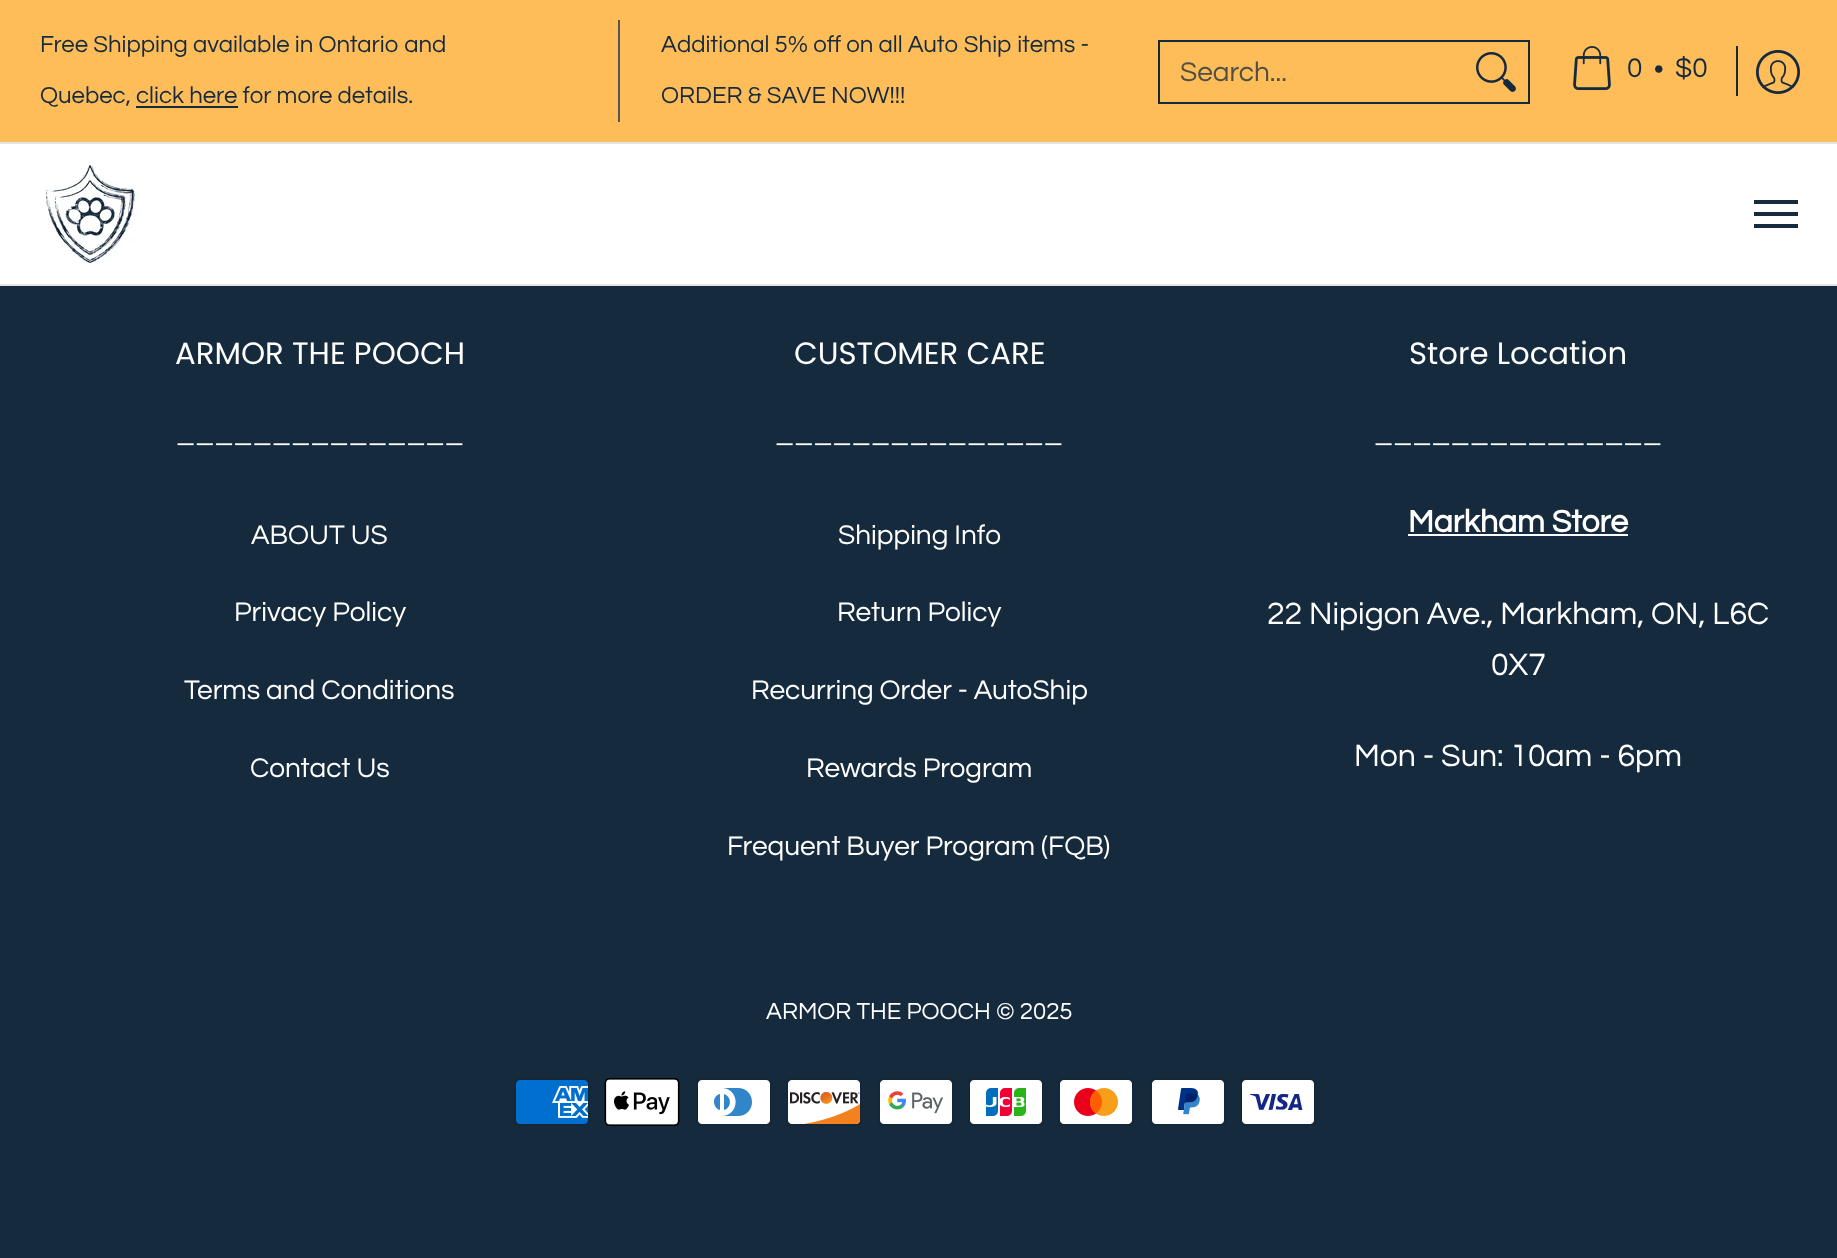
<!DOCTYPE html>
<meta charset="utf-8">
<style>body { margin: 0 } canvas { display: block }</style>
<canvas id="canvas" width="1837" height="1258"></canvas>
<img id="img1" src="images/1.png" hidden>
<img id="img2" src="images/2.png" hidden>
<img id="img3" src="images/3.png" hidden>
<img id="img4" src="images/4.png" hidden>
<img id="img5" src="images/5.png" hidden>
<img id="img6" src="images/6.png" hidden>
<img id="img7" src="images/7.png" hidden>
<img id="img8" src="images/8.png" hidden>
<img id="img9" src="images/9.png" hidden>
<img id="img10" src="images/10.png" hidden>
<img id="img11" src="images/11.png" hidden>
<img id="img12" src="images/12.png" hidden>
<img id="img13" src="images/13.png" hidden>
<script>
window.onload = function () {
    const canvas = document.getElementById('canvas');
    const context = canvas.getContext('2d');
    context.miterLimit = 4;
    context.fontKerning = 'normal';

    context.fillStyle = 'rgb(22, 42, 61)';
    context.fillRect(0, 0, 1837, 1258);
    context.fillStyle = 'rgb(255, 255, 255)';
    context.fillRect(0, 144, 1837, 140);
    context.fillStyle = 'rgb(255, 189, 89)';
    context.fillRect(0, 0, 1837, 142);
    context.fillStyle = 'rgb(228, 228, 228)';
    context.fillRect(0, 142, 1837, 2);
    context.fillStyle = 'rgb(22, 42, 61)';
    context.fillRect(136, 106, 102, 2);
    context.fillStyle = 'rgb(86, 86, 86)';
    context.fillRect(618, 20, 2, 102);
    context.strokeStyle = 'rgb(22, 42, 61)';
    context.lineWidth = 2;
    context.strokeRect(1159, 41, 370, 62);
    context.drawImage(document.getElementById('img1'), 1476, 52, 40, 40);
    context.drawImage(document.getElementById('img2'), 1573, 46, 38, 44);
    context.fillStyle = 'rgb(22, 42, 61)';
    context.fillRect(1736, 46, 2, 50);
    context.drawImage(document.getElementById('img3'), 1756, 50, 44, 44);
    context.fillStyle = 'rgb(228, 228, 228)';
    context.fillRect(0, 284, 1837, 2);
    context.drawImage(document.getElementById('img4'), 44, 164, 92, 100);
    context.fillStyle = 'rgb(22, 42, 61)';
    context.fillRect(1754, 200, 44, 4);
    context.fillRect(1754, 224, 44, 4);
    context.fillRect(1754, 212, 44, 4);
    context.fillStyle = 'rgb(255, 255, 255)';
    context.fillRect(1408, 534, 220, 2);
    context.drawImage(document.getElementById('img5'), 514, 1078, 76, 48);
    context.drawImage(document.getElementById('img6'), 604, 1078, 76, 48);
    context.drawImage(document.getElementById('img7'), 696, 1078, 76, 48);
    context.drawImage(document.getElementById('img8'), 786, 1078, 76, 48);
    context.drawImage(document.getElementById('img9'), 878, 1078, 76, 48);
    context.drawImage(document.getElementById('img10'), 968, 1078, 76, 48);
    context.drawImage(document.getElementById('img11'), 1058, 1078, 76, 48);
    context.drawImage(document.getElementById('img12'), 1150, 1078, 76, 48);
    context.drawImage(document.getElementById('img13'), 1240, 1078, 76, 48);
    context.font = '24px Questrial';
    context.fillStyle = 'rgb(22, 42, 61)';
    context.fillText('Free Shipping available in Ontario and', 40, 52);
    context.fillText('Quebec, click here for more details.', 40, 103);
    context.fillText('Additional 5% off on all Auto Ship items -', 661, 52);
    context.fillText('ORDER & SAVE NOW!!!', 661, 103);
    context.font = '28px Questrial';
    context.fillStyle = 'rgb(80, 79, 68)';
    context.fillText('Search...', 1180, 81);
    context.fillStyle = 'rgb(22, 42, 61)';
    context.fillText('0', 1627, 77);
    context.fillText('•', 1654, 78);
    context.fillText('$0', 1675, 77);
    context.font = '30.75px Poppins';
    context.fillStyle = 'rgb(255, 255, 255)';
    context.fillText('ARMOR THE POOCH', 175, 364);
    context.font = '32px Questrial';
    context.fillText('_______________', 176, 441);
    context.font = '28px Questrial';
    context.fillText('ABOUT US', 251, 544);
    context.fillText('Privacy Policy', 234, 621);
    context.fillText('Terms and Conditions', 184, 699);
    context.fillText('Contact Us', 250, 777);
    context.font = '30.75px Poppins';
    context.fillText('CUSTOMER CARE', 794, 364);
    context.font = '32px Questrial';
    context.fillText('_______________', 775, 441);
    context.font = '28px Questrial';
    context.fillText('Shipping Info', 838, 544);
    context.fillText('Return Policy', 837, 621);
    context.fillText('Recurring Order - AutoShip', 751, 699);
    context.fillText('Rewards Program', 806, 777);
    context.fillText('Frequent Buyer Program (FQB)', 727, 855);
    context.font = '30.75px Poppins';
    context.fillText('Store Location', 1409, 364);
    context.font = '32px Questrial';
    context.fillText('_______________', 1374, 441);
    context.font = 'bold 32px Questrial';
    context.fillText('Markham Store', 1408, 532);
    context.font = '32px Questrial';
    context.fillText('22 Nipigon Ave., Markham, ON, L6C', 1267, 624);
    context.fillText('0X7', 1491, 675);
    context.fillText('Mon - Sun: 10am - 6pm', 1354, 766);
    context.font = '24px Questrial';
    context.fillText('ARMOR THE POOCH © 2025', 766, 1019);
};
</script>
